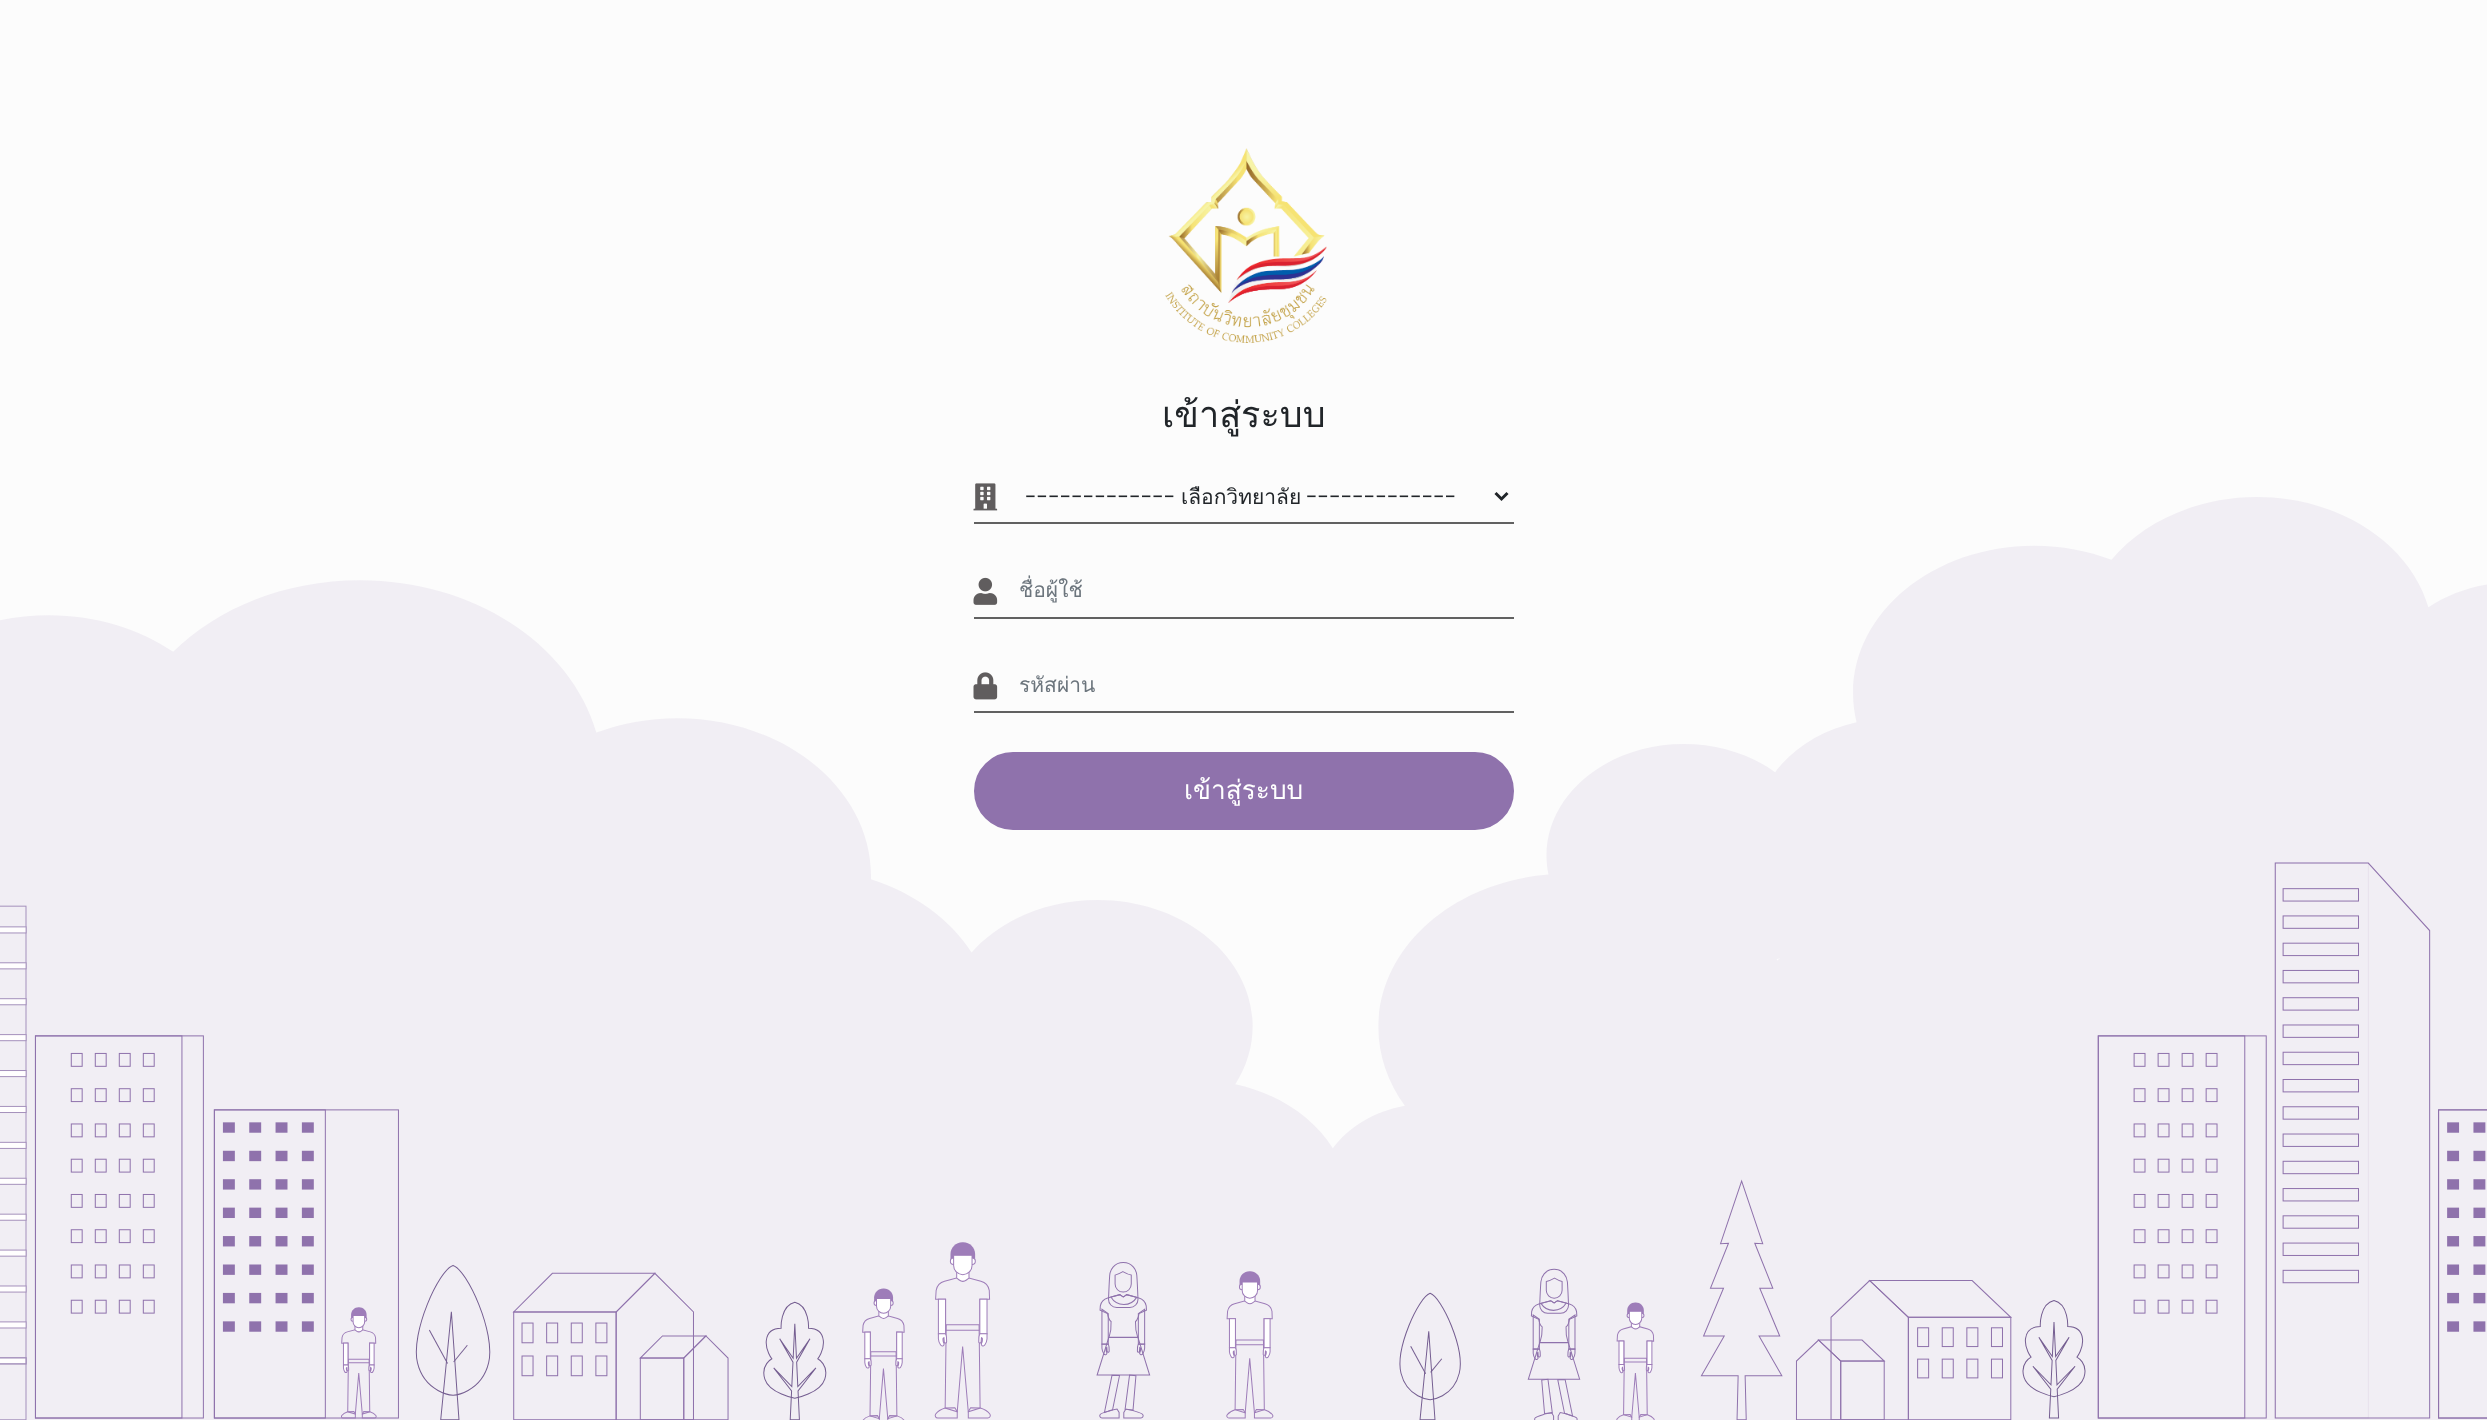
<!DOCTYPE html>
<meta charset="utf-8">
<style>body { margin: 0 } canvas { display: block }</style>
<canvas id="canvas" width="2487" height="1420"></canvas>
<img id="img1" src="images/1.png" hidden>
<img id="img2" src="images/2.png" hidden>
<img id="img3" src="images/3.png" hidden>
<img id="img4" src="images/4.png" hidden>
<img id="img5" src="images/5.png" hidden>
<script>
window.onload = function () {
    const canvas = document.getElementById('canvas');
    const context = canvas.getContext('2d');
    context.miterLimit = 4;
    context.fontKerning = 'normal';

    context.fillStyle = 'rgb(252, 252, 252)';
    context.fillRect(0, 0, 2487, 1420);
    context.drawImage(document.getElementById('img1'), 0, 497, 2487, 923);
    context.drawImage(document.getElementById('img2'), 1165, 148, 162, 195);
    context.drawImage(document.getElementById('img3'), 973, 483, 25, 28);
    context.fillStyle = 'rgb(97, 97, 97)';
    context.fillRect(974, 522, 540, 2);
    context.beginPath();
    context.moveTo(1495.5, 493);
    context.lineTo(1501.5, 499);
    context.lineTo(1507.5, 493);
    context.strokeStyle = 'rgb(33, 37, 41)';
    context.lineWidth = 3;
    context.stroke();
    context.drawImage(document.getElementById('img4'), 973, 577, 25, 28);
    context.fillRect(974, 617, 540, 2);
    context.drawImage(document.getElementById('img5'), 973, 672, 25, 28);
    context.fillRect(974, 711, 540, 2);
    context.fillStyle = 'rgb(143, 114, 172)';
    context.beginPath();
    context.roundRect(975, 753, 538, 76, 38);
    context.fill();
    context.strokeStyle = 'rgb(143, 114, 172)';
    context.lineWidth = 2;
    context.stroke();
    context.font = '36px Loma';
    context.fillStyle = 'rgb(33, 37, 41)';
    context.fillText('เข้าสู่ระบบ', 1162, 427);
    context.font = '21px Poppins';
    context.fillText('-------------', 1025, 504);
    context.font = '21px Loma';
    context.fillText('เลือกวิทยาลัย', 1181, 504);
    context.font = '21px Poppins';
    context.fillText('-------------', 1306, 504);
    context.save();
    context.beginPath();
    context.rect(1019, 573, 495, 33);
    context.clip();
    context.font = '21px Loma';
    context.fillStyle = 'rgb(108, 117, 125)';
    context.fillText('ชื่อผู้ใช้', 1019, 597);
    context.restore();
    context.font = '21px Loma';
    context.fillStyle = 'rgb(108, 117, 125)';
    context.fillText('รหัสผ่าน', 1019, 692);
    context.font = '26.25px Loma';
    context.fillStyle = 'rgb(255, 255, 255)';
    context.fillText('เข้าสู่ระบบ', 1184, 799);
};
</script>
